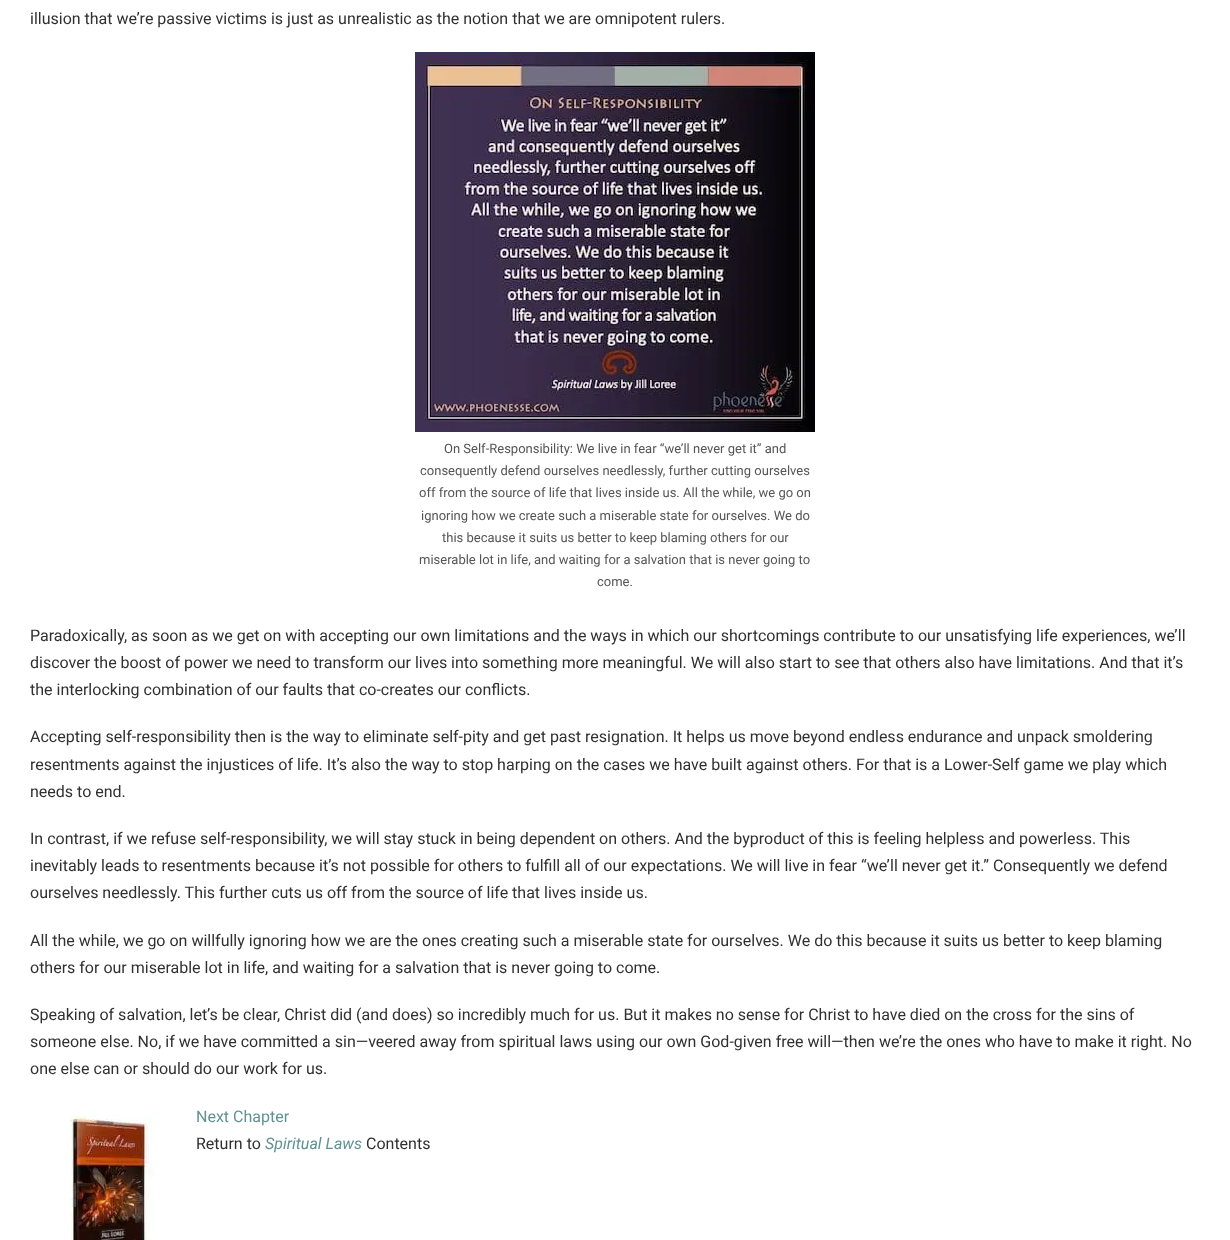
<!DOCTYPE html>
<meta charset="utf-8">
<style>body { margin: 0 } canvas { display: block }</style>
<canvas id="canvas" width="1230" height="1240"></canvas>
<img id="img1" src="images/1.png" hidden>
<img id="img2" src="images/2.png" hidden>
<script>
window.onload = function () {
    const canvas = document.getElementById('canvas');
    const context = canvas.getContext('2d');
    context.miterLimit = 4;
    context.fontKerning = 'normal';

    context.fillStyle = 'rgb(255, 255, 255)';
    context.fillRect(0, 0, 1230, 1240);
    context.drawImage(document.getElementById('img1'), 415, 52, 400, 380);
    context.drawImage(document.getElementById('img2'), 70, 1115, 84, 125);
    context.font = '16px Roboto';
    context.fillStyle = 'rgb(48, 48, 48)';
    context.fillText('illusion that we’re passive victims is just as unrealistic as the notion that we are omnipotent rulers.', 30, 24);
    context.font = '13px Roboto';
    context.fillStyle = 'rgb(85, 85, 85)';
    context.fillText('On Self-Responsibility: We live in fear “we’ll never get it” and', 444, 453);
    context.fillText('consequently defend ourselves needlessly, further cutting ourselves', 420, 475);
    context.fillText('off from the source of life that lives inside us. All the while, we go on', 419, 497);
    context.fillText('ignoring how we create such a miserable state for ourselves. We do', 421, 520);
    context.fillText('this because it suits us better to keep blaming others for our', 442, 542);
    context.fillText('miserable lot in life, and waiting for a salvation that is never going to', 419, 564);
    context.fillText('come.', 597, 586);
    context.font = '16px Roboto';
    context.fillStyle = 'rgb(48, 48, 48)';
    context.fillText('Paradoxically, as soon as we get on with accepting our own limitations and the ways in which our shortcomings contribute to our unsatisfying life experiences, we’ll', 30, 641);
    context.fillText('discover the boost of power we need to transform our lives into something more meaningful. We will also start to see that others also have limitations. And that it’s', 30, 668);
    context.fillText('the interlocking combination of our faults that co-creates our conflicts.', 30, 695);
    context.fillText('Accepting self-responsibility then is the way to eliminate self-pity and get past resignation. It helps us move beyond endless endurance and unpack smoldering', 30, 742);
    context.fillText('resentments against the injustices of life. It’s also the way to stop harping on the cases we have built against others. For that is a Lower-Self game we play which', 30, 770);
    context.fillText('needs to end.', 30, 797);
    context.fillText('In contrast, if we refuse self-responsibility, we will stay stuck in being dependent on others. And the byproduct of this is feeling helpless and powerless. This', 30, 844);
    context.fillText('inevitably leads to resentments because it’s not possible for others to fulfill all of our expectations. We will live in fear “we’ll never get it.” Consequently we defend', 30, 871);
    context.fillText('ourselves needlessly. This further cuts us off from the source of life that lives inside us.', 30, 898);
    context.fillText('All the while, we go on willfully ignoring how we are the ones creating such a miserable state for ourselves. We do this because it suits us better to keep blaming', 30, 946);
    context.fillText('others for our miserable lot in life, and waiting for a salvation that is never going to come.', 30, 973);
    context.fillText('Speaking of salvation, let’s be clear, Christ did (and does) so incredibly much for us. But it makes no sense for Christ to have died on the cross for the sins of', 30, 1020);
    context.fillText('someone else. No, if we have committed a sin—veered away from spiritual laws using our own God-given free will—then we’re the ones who have to make it right. No', 30, 1047);
    context.fillText('one else can or should do our work for us.', 30, 1074);
    context.fillStyle = 'rgb(96, 146, 147)';
    context.fillText('Next Chapter', 196, 1122);
    context.fillStyle = 'rgb(48, 48, 48)';
    context.fillText('Return to', 196, 1149);
    context.font = 'italic 16px Roboto';
    context.fillStyle = 'rgb(96, 146, 147)';
    context.fillText('Spiritual Laws', 265, 1149);
    context.font = '16px Roboto';
    context.fillStyle = 'rgb(48, 48, 48)';
    context.fillText('Contents', 366, 1149);
};
</script>
